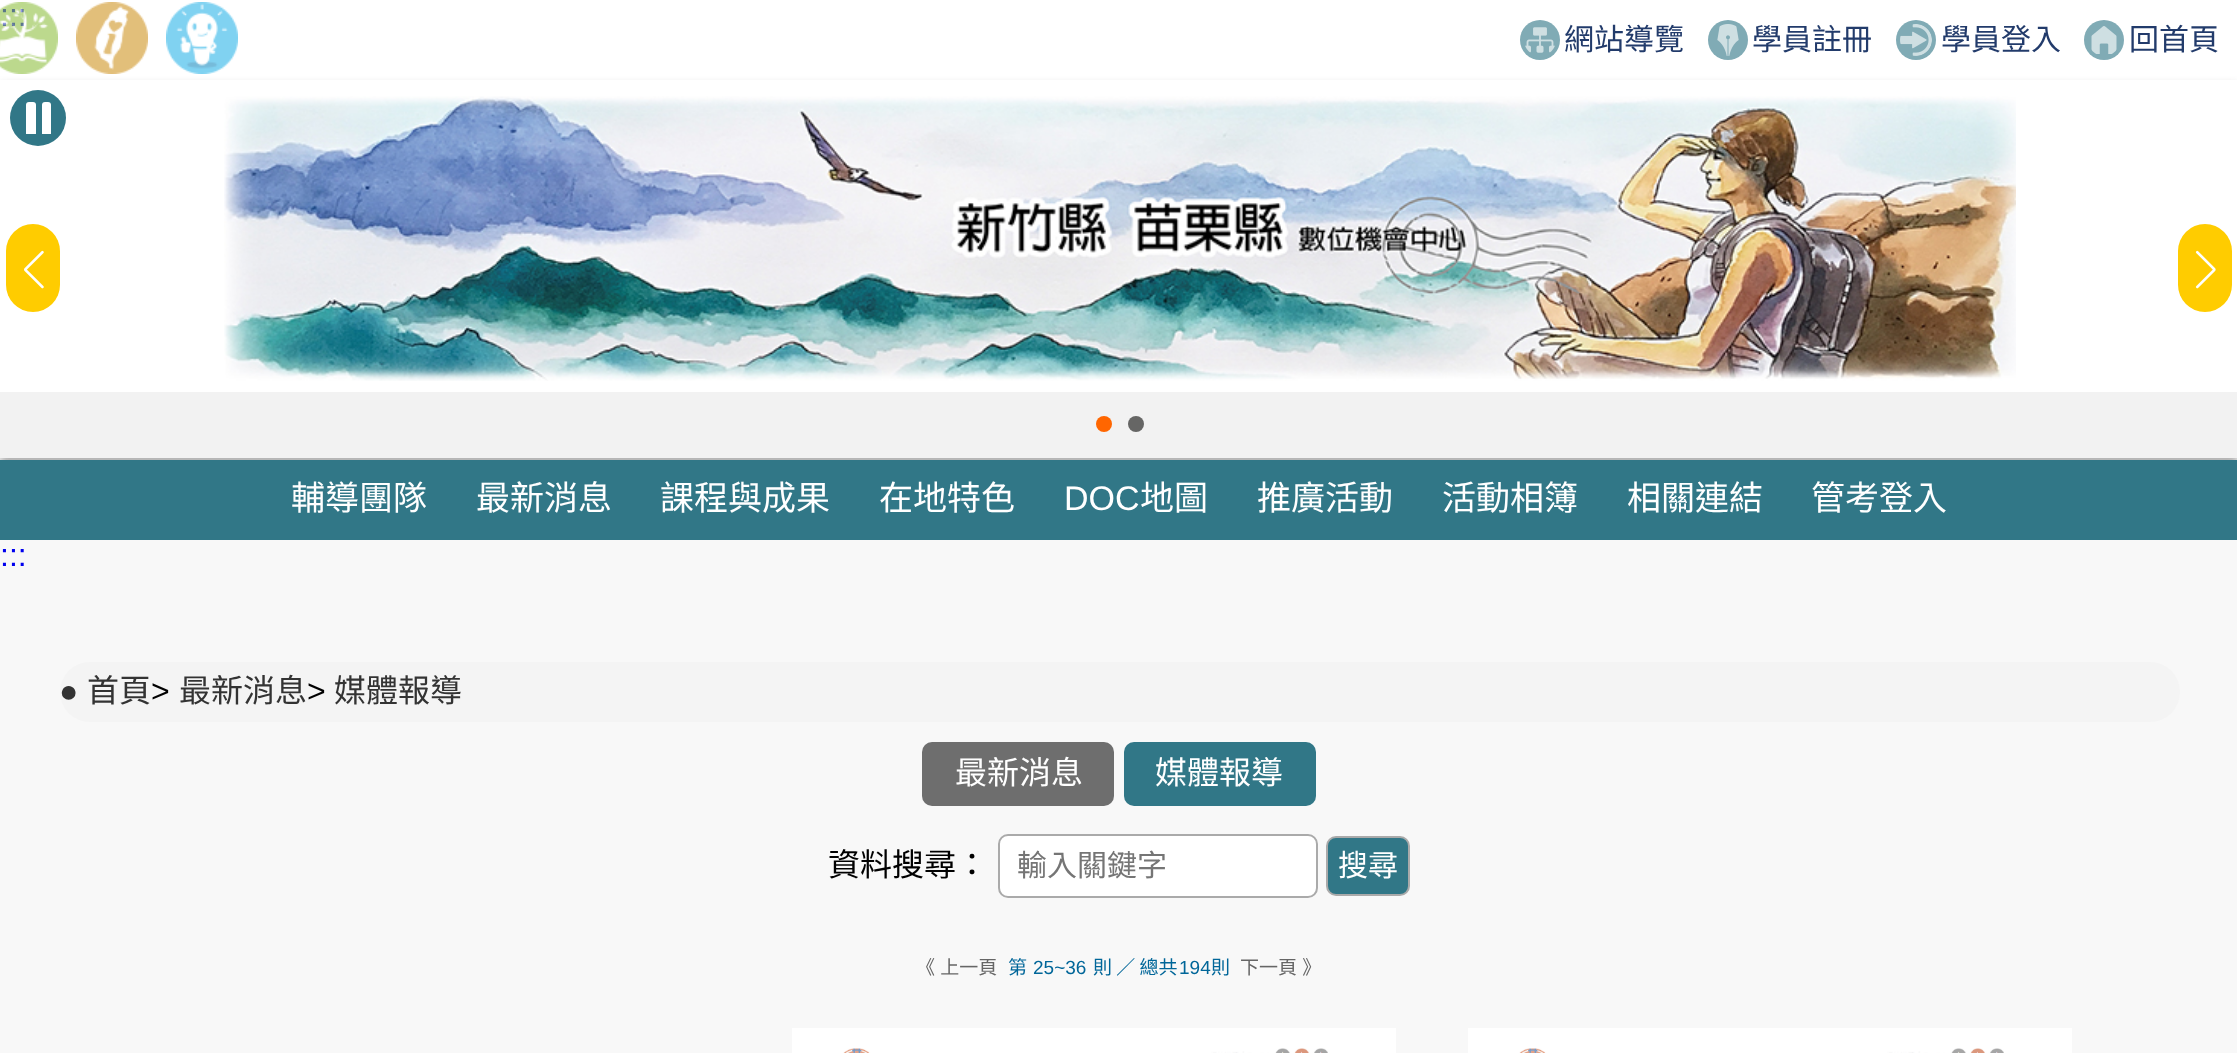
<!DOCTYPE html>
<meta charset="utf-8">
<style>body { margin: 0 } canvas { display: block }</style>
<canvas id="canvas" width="2237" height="1053"></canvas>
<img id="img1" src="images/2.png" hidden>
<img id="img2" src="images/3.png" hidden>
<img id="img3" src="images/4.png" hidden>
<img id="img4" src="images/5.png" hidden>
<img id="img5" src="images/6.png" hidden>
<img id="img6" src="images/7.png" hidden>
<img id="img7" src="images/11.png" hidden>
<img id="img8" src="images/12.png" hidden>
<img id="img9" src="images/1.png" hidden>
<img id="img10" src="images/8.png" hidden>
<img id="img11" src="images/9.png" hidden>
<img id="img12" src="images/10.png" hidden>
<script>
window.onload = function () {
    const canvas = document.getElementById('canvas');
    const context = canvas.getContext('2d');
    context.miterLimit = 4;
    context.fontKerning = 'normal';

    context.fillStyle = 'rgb(255, 255, 255)';
    context.fillRect(0, 0, 2237, 1053);
    context.drawImage(document.getElementById('img1'), 76, 2, 72, 72);
    context.drawImage(document.getElementById('img2'), 166, 2, 72, 72);
    context.fillStyle = 'rgb(128, 171, 181)';
    context.beginPath();
    context.arc(1540, 40, 20, 0, 2 * Math.PI);
    context.fill();
    context.drawImage(document.getElementById('img3'), 1525, 27, 30, 26);
    context.beginPath();
    context.arc(1728, 40, 20, 0, 2 * Math.PI);
    context.fill();
    context.drawImage(document.getElementById('img4'), 1717, 24, 22, 32);
    context.beginPath();
    context.arc(1916, 40, 20, 0, 2 * Math.PI);
    context.fill();
    context.drawImage(document.getElementById('img5'), 1900, 24, 32, 32);
    context.beginPath();
    context.arc(2104, 40, 20, 0, 2 * Math.PI);
    context.fill();
    context.drawImage(document.getElementById('img6'), 2091, 26, 26, 28);
    context.fillStyle = 'rgb(248, 248, 248)';
    context.fillRect(0, 540, 2237, 513);
    context.fillStyle = 'rgb(244, 244, 244)';
    context.beginPath();
    context.roundRect(60, 662, 2120, 60, 30);
    context.fill();
    context.fillStyle = 'rgb(110, 110, 110)';
    context.beginPath();
    context.roundRect(922, 742, 192, 64, 10);
    context.fill();
    context.fillStyle = 'rgb(49, 119, 135)';
    context.beginPath();
    context.roundRect(1124, 742, 192, 64, 10);
    context.fill();
    context.fillStyle = 'rgb(255, 255, 255)';
    context.beginPath();
    context.roundRect(999, 835, 318, 62, 9);
    context.fill();
    context.strokeStyle = 'rgb(170, 170, 170)';
    context.lineWidth = 2;
    context.stroke();
    context.fillStyle = 'rgb(49, 119, 135)';
    context.beginPath();
    context.roundRect(1327, 837, 82, 58, 9);
    context.fill();
    context.stroke();
    context.fillStyle = 'rgb(255, 255, 255)';
    context.fillRect(792, 1028, 604, 25);
    context.drawImage(document.getElementById('img7'), 843, 1048, 485, 5);
    context.fillRect(1468, 1028, 604, 25);
    context.drawImage(document.getElementById('img8'), 1519, 1048, 485, 5);
    context.font = '32px Liberation Sans';
    context.fillStyle = 'rgb(0, 0, 238)';
    context.fillText(':::', 0, 26);
    context.drawImage(document.getElementById('img9'), 0, 2, 58, 72);
    context.font = '30px Noto Sans CJK TC';
    context.fillStyle = 'rgb(34, 59, 107)';
    context.fillText('網站導覽', 1564, 50);
    context.fillText('學員註冊', 1752, 50);
    context.fillText('學員登入', 1941, 50);
    context.fillText('回首頁', 2129, 50);
    context.fillStyle = 'rgba(0, 0, 0, 0.3)';
    context.filter = 'blur(5px)';
    context.beginPath();
    context.rect(0, 86, 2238, 380);
    context.fill();
    context.filter = 'none';
    context.fillStyle = 'rgb(242, 242, 242)';
    context.fillRect(0, 392, 2237, 66);
    context.fillStyle = 'rgb(255, 255, 255)';
    context.fillRect(0, 80, 2237, 312);
    context.drawImage(document.getElementById('img10'), 224, 96, 1792, 285);
    context.fillStyle = 'rgb(255, 204, 0)';
    context.beginPath();
    context.roundRect(6, 224, 54, 88, 27);
    context.fill();
    context.drawImage(document.getElementById('img11'), 24, 250, 20, 39);
    context.beginPath();
    context.roundRect(2178, 224, 54, 88, 27);
    context.fill();
    context.drawImage(document.getElementById('img12'), 2195, 250, 21, 39);
    context.fillStyle = 'rgb(255, 102, 0)';
    context.beginPath();
    context.arc(1104, 424, 8, 0, 2 * Math.PI);
    context.fill();
    context.fillStyle = 'rgb(102, 102, 101)';
    context.beginPath();
    context.arc(1136, 424, 8, 0, 2 * Math.PI);
    context.fill();
    context.fillStyle = 'rgb(49, 119, 135)';
    context.beginPath();
    context.arc(38, 118, 28, 0, 2 * Math.PI);
    context.fill();
    context.save();
    context.beginPath();
    context.rect(22, 102, 32, 32);
    context.clip();
    context.fillStyle = 'rgb(255, 255, 255)';
    context.beginPath();
    context.roundRect(26, 102, 10, 34, 3);
    context.fill();
    context.beginPath();
    context.roundRect(42, 102, 9, 34, 3);
    context.fill();
    context.restore();
    context.fillRect(0, 460, 2237, 80);
    context.font = '34px Noto Sans CJK TC';
    context.fillStyle = 'rgb(255, 255, 255)';
    context.fillText('輔導團隊', 291, 510);
    context.fillText('最新消息', 476, 510);
    context.fillText('課程與成果', 660, 510);
    context.fillText('在地特色', 879, 510);
    context.font = '34px Liberation Sans';
    context.fillText('DOC', 1064, 510);
    context.font = '34px Noto Sans CJK TC';
    context.fillText('地圖', 1140, 510);
    context.fillText('推廣活動', 1257, 510);
    context.fillText('活動相簿', 1442, 510);
    context.fillText('相關連結', 1627, 510);
    context.fillText('管考登入', 1811, 510);
    context.font = '32px Liberation Sans';
    context.fillStyle = 'rgb(0, 0, 238)';
    context.fillText(':::', 0, 566);
    context.fillStyle = 'rgb(51, 51, 51)';
    context.fillText('●', 59, 702);
    context.font = '32px Noto Sans CJK TC';
    context.fillText('首頁', 87, 702);
    context.font = '32px Liberation Sans';
    context.fillStyle = 'rgb(0, 0, 0)';
    context.fillText('>', 151, 702);
    context.font = '32px Noto Sans CJK TC';
    context.fillStyle = 'rgb(51, 51, 51)';
    context.fillText('最新消息', 179, 702);
    context.font = '32px Liberation Sans';
    context.fillStyle = 'rgb(0, 0, 0)';
    context.fillText('>', 307, 702);
    context.font = '32px Noto Sans CJK TC';
    context.fillStyle = 'rgb(51, 51, 51)';
    context.fillText('媒體報導', 334, 702);
    context.fillStyle = 'rgb(255, 255, 255)';
    context.fillText('最新消息', 955, 784);
    context.fillText('媒體報導', 1155, 784);
    context.fillStyle = 'rgb(0, 0, 0)';
    context.fillText('資料搜尋：', 828, 876);
    context.font = '30px Noto Sans CJK TC';
    context.fillStyle = 'rgb(117, 117, 117)';
    context.fillText('輸入關鍵字', 1017, 876);
    context.fillStyle = 'rgb(255, 255, 255)';
    context.fillText('搜尋', 1338, 876);
    context.wordSpacing = '1px';
    context.font = '19px Noto Sans CJK TC';
    context.fillStyle = 'rgb(102, 102, 102)';
    context.fillText('《 上一頁', 916, 974);
    context.wordSpacing = '0px';
    context.fillStyle = 'rgb(0, 102, 153)';
    context.fillText('第', 1008, 974);
    context.font = '19px Liberation Sans';
    context.fillText('25~36', 1033, 974);
    context.font = '19px Noto Sans CJK TC';
    context.fillText('則 ／ 總共', 1093, 974);
    context.font = '19px Liberation Sans';
    context.fillText('194', 1179, 974);
    context.font = '19px Noto Sans CJK TC';
    context.fillText('則', 1211, 974);
    context.wordSpacing = '1px';
    context.fillStyle = 'rgb(102, 102, 102)';
    context.fillText('下一頁 》', 1240, 974);
};
</script>
